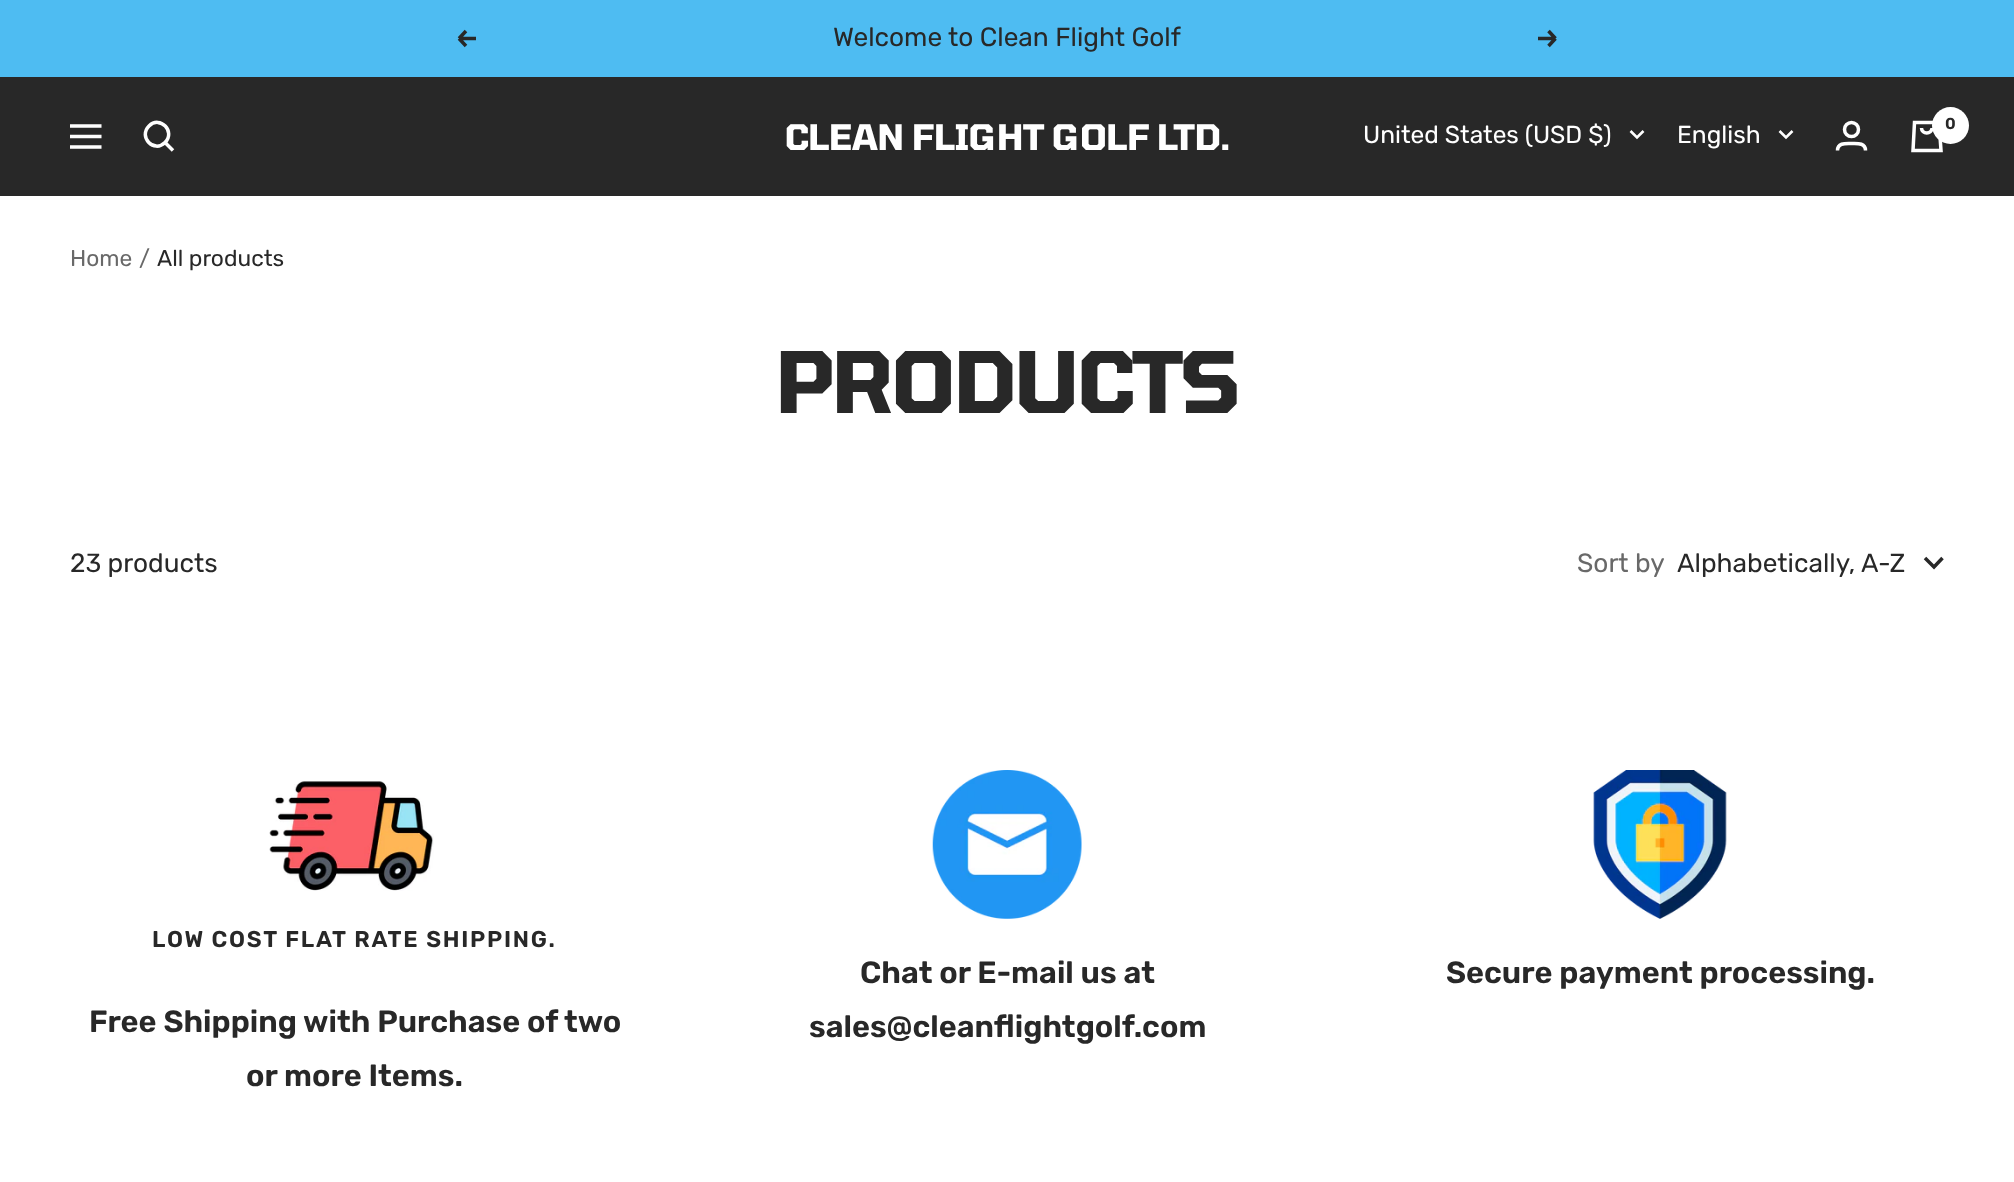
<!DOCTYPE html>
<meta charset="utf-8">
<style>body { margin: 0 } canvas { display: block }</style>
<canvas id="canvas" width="2014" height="1182"></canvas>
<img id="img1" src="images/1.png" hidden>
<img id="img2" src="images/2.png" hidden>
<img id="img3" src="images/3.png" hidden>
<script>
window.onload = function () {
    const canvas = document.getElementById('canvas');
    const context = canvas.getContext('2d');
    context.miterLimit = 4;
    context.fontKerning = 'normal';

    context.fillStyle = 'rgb(255, 255, 255)';
    context.fillRect(0, 0, 2014, 1182);
    context.fillStyle = 'rgb(78, 188, 242)';
    context.fillRect(0, 0, 2014, 77);
    context.beginPath();
    context.moveTo(476, 38.5);
    context.lineTo(459, 38.5);
    context.moveTo(459, 38.5);
    context.lineTo(466, 46);
    context.moveTo(459, 38.5);
    context.lineTo(466, 31);
    context.strokeStyle = 'rgb(40, 40, 40)';
    context.lineWidth = 3.5;
    context.stroke();
    context.beginPath();
    context.moveTo(1538, 38.5);
    context.lineTo(1555.5, 38.5);
    context.moveTo(1555.5, 38.5);
    context.lineTo(1548.5, 46);
    context.moveTo(1555.5, 38.5);
    context.lineTo(1548.5, 31);
    context.stroke();
    context.fillStyle = 'rgb(40, 40, 40)';
    context.fillRect(0, 77, 2014, 119);
    context.beginPath();
    context.moveTo(70, 126);
    context.lineTo(101.5, 126);
    context.moveTo(70, 147);
    context.lineTo(101.5, 147);
    context.closePath();
    context.moveTo(70, 136.5);
    context.lineTo(101.5, 136.5);
    context.closePath();
    context.strokeStyle = 'rgb(255, 255, 255)';
    context.stroke();
    context.beginPath();
    context.moveTo(165, 142.5);
    context.bezierCurveTo(176, 131.5, 160, 115, 149, 126);
    context.bezierCurveTo(138, 137, 154, 153.5, 165, 142.5);
    context.closePath();
    context.moveTo(165, 142.5);
    context.lineTo(173, 150.5);
    context.stroke();
    context.beginPath();
    context.moveTo(1630.5, 131);
    context.lineTo(1637, 137.5);
    context.lineTo(1643.5, 131);
    context.lineWidth = 2.6;
    context.stroke();
    context.beginPath();
    context.moveTo(1779.5, 131);
    context.lineTo(1786, 137.5);
    context.lineTo(1792.5, 131);
    context.stroke();
    context.beginPath();
    context.arc(1851.5, 129.5, 7, 0, 2 * Math.PI);
    context.lineWidth = 3.5;
    context.stroke();
    context.beginPath();
    context.moveTo(1837.5, 150.5);
    context.bezierCurveTo(1837.5, 142.5, 1846, 143.5, 1851.5, 143.5);
    context.bezierCurveTo(1857, 143.5, 1865.5, 142.5, 1865.5, 150.5);
    context.stroke();
    context.beginPath();
    context.moveTo(1914.5, 122.5);
    context.lineTo(1939, 122.5);
    context.lineTo(1941, 150.5);
    context.lineTo(1913, 150.5);
    context.closePath();
    context.moveTo(1921.5, 128);
    context.bezierCurveTo(1921.5, 134.5, 1932, 134.5, 1932, 128);
    context.stroke();
    context.fillStyle = 'rgb(255, 255, 255)';
    context.beginPath();
    context.arc(1950.5, 125.5, 18.5, 0, 2 * Math.PI);
    context.fill();
    context.beginPath();
    context.moveTo(1925, 558);
    context.lineTo(1934, 567);
    context.lineTo(1942.5, 558);
    context.strokeStyle = 'rgb(40, 40, 40)';
    context.stroke();
    context.drawImage(document.getElementById('img1'), 269, 781, 165, 110);
    context.drawImage(document.getElementById('img2'), 932, 770, 150, 149);
    context.drawImage(document.getElementById('img3'), 1593, 770, 134, 149);
    context.font = '26.25px Rubik';
    context.fillStyle = 'rgb(40, 40, 40)';
    context.fillText('Welcome to Clean Flight Golf', 833, 46);
    context.letterSpacing = '-0.5px';
    context.font = 'bold 35px Tomorrow';
    context.fillStyle = 'rgb(255, 255, 255)';
    context.fillText('CLEAN FLIGHT GOLF LTD.', 785, 150);
    context.letterSpacing = '0px';
    context.font = '24.5px Rubik';
    context.fillText('United States (USD $)', 1363, 143);
    context.fillText('English', 1677, 143);
    context.font = '600 16px Rubik';
    context.fillStyle = 'rgb(40, 40, 40)';
    context.fillText('0', 1945, 129);
    context.font = '22.75px Rubik';
    context.fillStyle = 'rgb(105, 105, 105)';
    context.fillText('Home', 70, 266);
    context.fillText('/', 139, 266);
    context.fillStyle = 'rgb(40, 40, 40)';
    context.fillText('All products', 157, 266);
    context.letterSpacing = '-1.75px';
    context.font = 'bold 84px Tomorrow';
    context.fillText('PRODUCTS', 775, 413);
    context.letterSpacing = '0px';
    context.font = '26.25px Rubik';
    context.fillText('23 products', 70, 572);
    context.fillStyle = 'rgb(105, 105, 105)';
    context.fillText('Sort by', 1577, 572);
    context.fillStyle = 'rgb(40, 40, 40)';
    context.fillText('Alphabetically, A-Z', 1677, 572);
    context.letterSpacing = '1.75px';
    context.font = '600 22.75px Rubik';
    context.fillText('LOW COST FLAT RATE SHIPPING.', 152, 947);
    context.letterSpacing = '0px';
    context.font = '600 30.75px Rubik';
    context.fillText('Free Shipping with Purchase of two', 89, 1032);
    context.fillText('or more Items.', 246, 1086);
    context.fillText('Chat or E-mail us at', 860, 983);
    context.fillText('sales@cleanflightgolf.com', 809, 1037);
    context.fillText('Secure payment processing.', 1446, 983);
};
</script>
